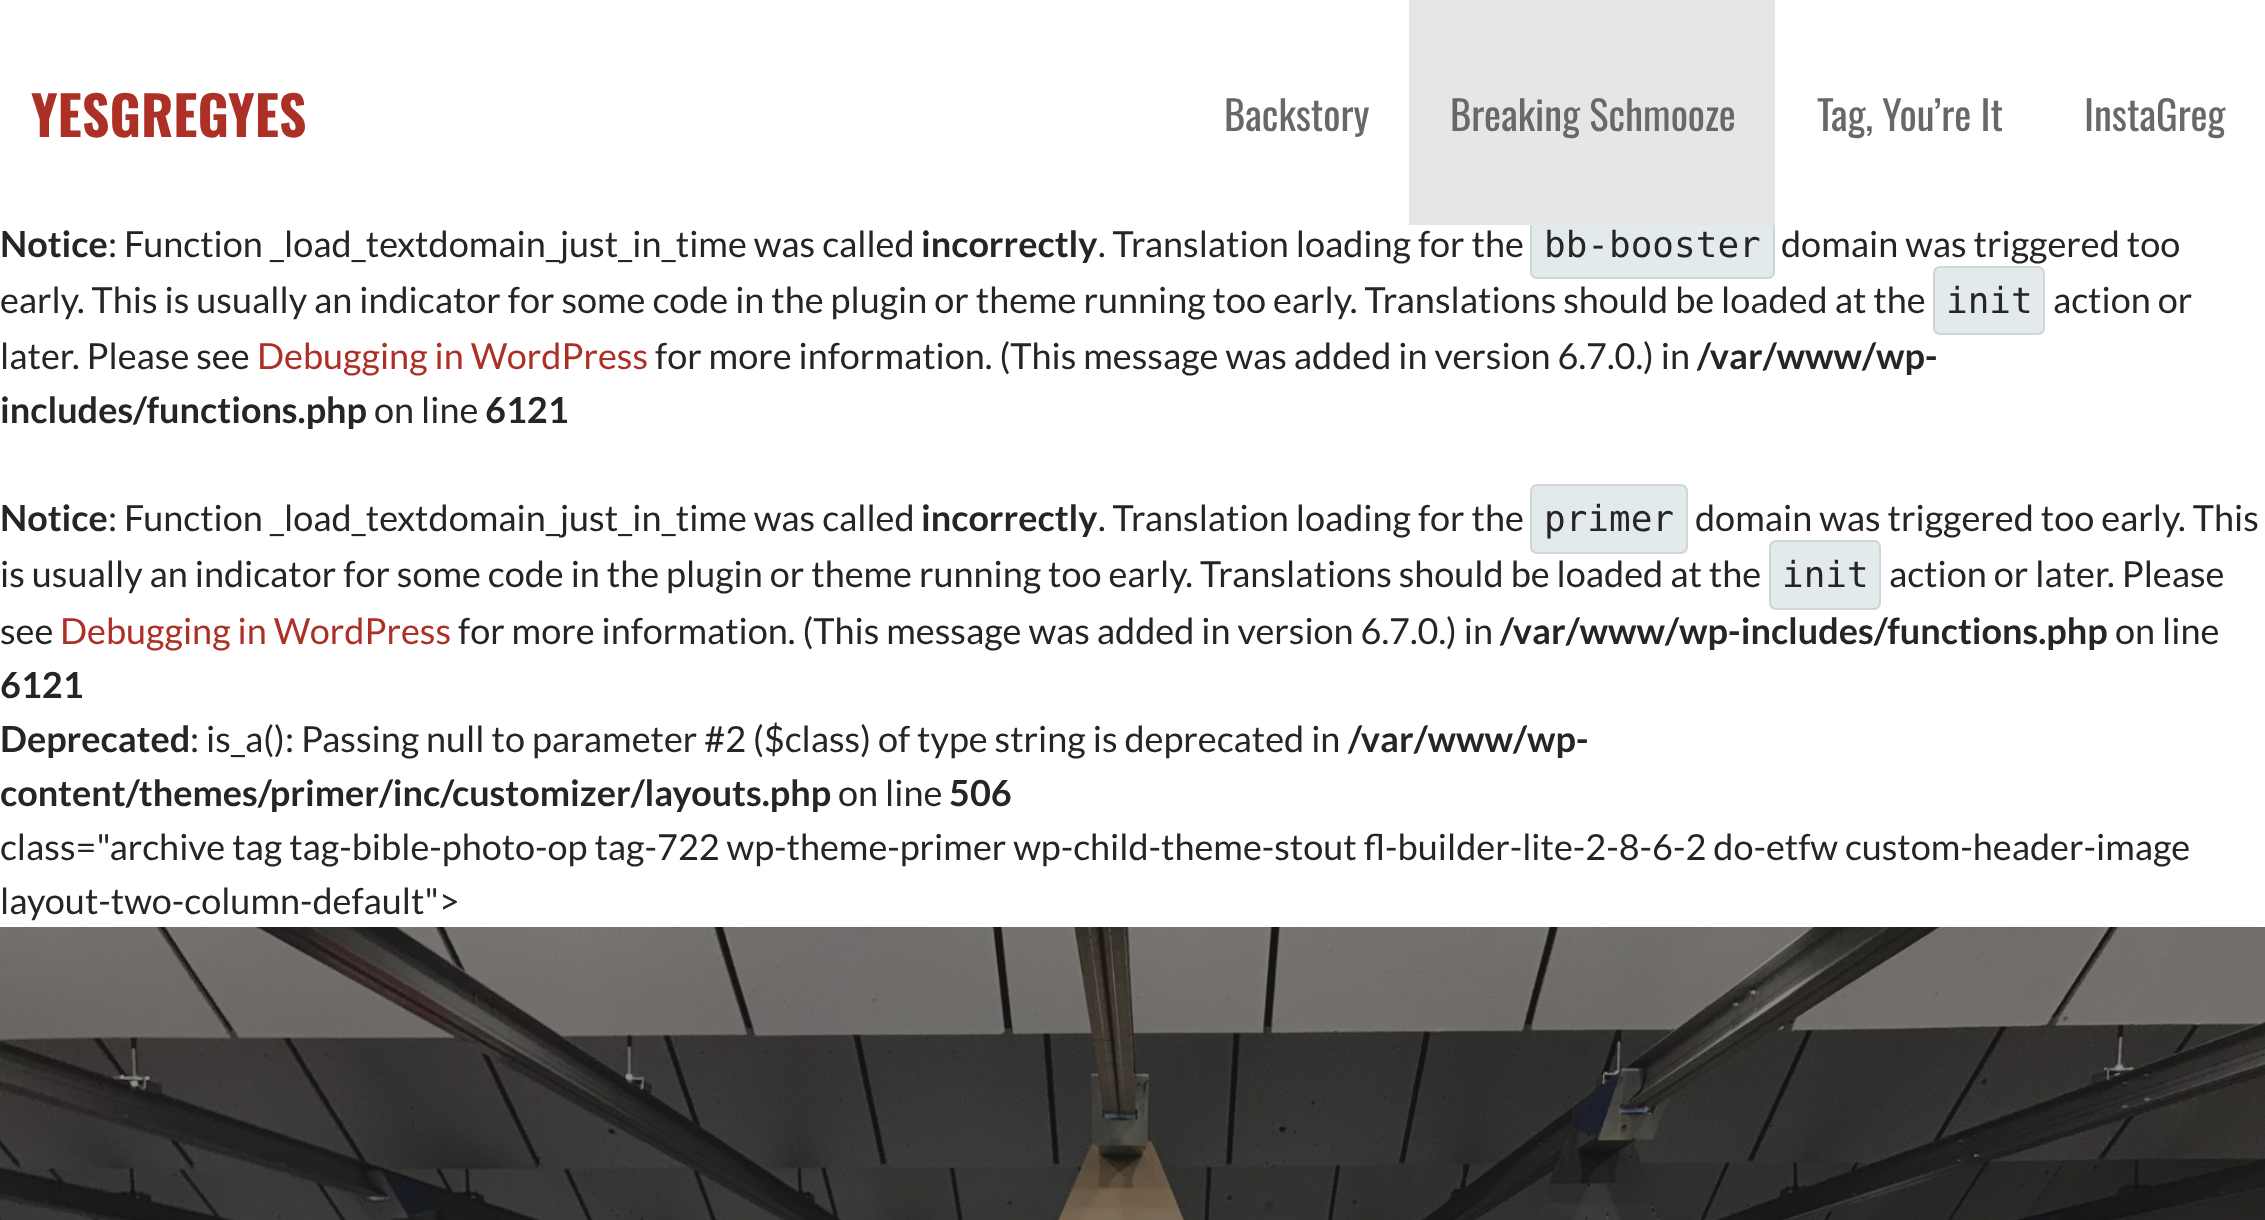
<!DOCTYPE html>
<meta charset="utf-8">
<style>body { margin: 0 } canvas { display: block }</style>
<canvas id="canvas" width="2265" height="1220"></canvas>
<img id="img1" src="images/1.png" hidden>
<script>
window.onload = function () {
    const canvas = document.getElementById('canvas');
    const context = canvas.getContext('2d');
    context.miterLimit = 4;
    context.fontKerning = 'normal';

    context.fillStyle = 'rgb(255, 255, 255)';
    context.fillRect(0, 0, 2265, 1220);
    context.fillStyle = 'rgb(227, 234, 235)';
    context.beginPath();
    context.roundRect(1530, 209, 245, 70, 7);
    context.fill();
    context.beginPath();
    context.roundRect(1531, 210, 243, 68, 6);
    context.strokeStyle = 'rgba(37, 37, 37, 0.1)';
    context.lineWidth = 2;
    context.stroke();
    context.fillStyle = 'rgb(255, 255, 255)';
    context.fillRect(1530, 209, 245, 16);
    context.fillStyle = 'rgb(230, 230, 230)';
    context.fillRect(1409, 0, 366, 225);
    context.drawImage(document.getElementById('img1'), 0, 927, 2265, 293);
    context.fillStyle = 'rgb(227, 234, 235)';
    context.beginPath();
    context.roundRect(1933, 266, 112, 69, 7);
    context.fill();
    context.beginPath();
    context.roundRect(1934, 267, 110, 67, 6);
    context.stroke();
    context.beginPath();
    context.roundRect(1530, 484, 158, 70, 7);
    context.fill();
    context.beginPath();
    context.roundRect(1531, 485, 156, 68, 6);
    context.stroke();
    context.beginPath();
    context.roundRect(1769, 540, 112, 70, 7);
    context.fill();
    context.beginPath();
    context.roundRect(1770, 541, 110, 68, 6);
    context.stroke();
    context.font = 'bold 54px Oswald';
    context.fillStyle = 'rgb(173, 48, 39)';
    context.fillText('YESGREGYES', 31, 137);
    context.font = '40.5px Oswald';
    context.fillStyle = 'rgb(104, 104, 104)';
    context.fillText('Backstory', 1224, 131);
    context.fillText('Breaking Schmooze', 1450, 131);
    context.fillText('Tag, You’re It', 1817, 131);
    context.fillText('InstaGreg', 2084, 131);
    context.font = 'bold 36px Lato';
    context.fillStyle = 'rgb(37, 37, 37)';
    context.fillText('Notice', 0, 257);
    context.font = '36px Lato';
    context.fillText(': Function _load_textdomain_just_in_time was called', 108, 257);
    context.font = 'bold 36px Lato';
    context.fillText('incorrectly', 921, 257);
    context.font = '36px Lato';
    context.fillText('. Translation loading for the', 1098, 257);
    context.font = '36px DejaVu Sans Mono';
    context.fillText('bb-booster', 1544, 257);
    context.font = '36px Lato';
    context.fillText('domain was triggered too', 1781, 257);
    context.fillText('early. This is usually an indicator for some code in the plugin or theme running too early. Translations should be loaded at the', 0, 313);
    context.font = '36px DejaVu Sans Mono';
    context.fillText('init', 1946, 313);
    context.font = '36px Lato';
    context.fillText('action or', 2053, 313);
    context.fillText('later. Please see', 0, 369);
    context.fillStyle = 'rgb(173, 48, 39)';
    context.fillText('Debugging in WordPress', 257, 369);
    context.fillStyle = 'rgb(37, 37, 37)';
    context.fillText('for more information. (This message was added in version 6.7.0.) in', 655, 369);
    context.font = 'bold 36px Lato';
    context.fillText('/var/www/wp-', 1697, 369);
    context.fillText('includes/functions.php', 0, 423);
    context.font = '36px Lato';
    context.fillText('on line', 374, 423);
    context.font = 'bold 36px Lato';
    context.fillText('6121', 485, 423);
    context.fillText('Notice', 0, 531);
    context.font = '36px Lato';
    context.fillText(': Function _load_textdomain_just_in_time was called', 108, 531);
    context.font = 'bold 36px Lato';
    context.fillText('incorrectly', 921, 531);
    context.font = '36px Lato';
    context.fillText('. Translation loading for the', 1098, 531);
    context.font = '36px DejaVu Sans Mono';
    context.fillText('primer', 1544, 531);
    context.font = '36px Lato';
    context.fillText('domain was triggered too early. This', 1695, 531);
    context.fillText('is usually an indicator for some code in the plugin or theme running too early. Translations should be loaded at the', 0, 587);
    context.font = '36px DejaVu Sans Mono';
    context.fillText('init', 1782, 587);
    context.font = '36px Lato';
    context.fillText('action or later. Please', 1889, 587);
    context.fillText('see', 0, 644);
    context.fillStyle = 'rgb(173, 48, 39)';
    context.fillText('Debugging in WordPress', 60, 644);
    context.fillStyle = 'rgb(37, 37, 37)';
    context.fillText('for more information. (This message was added in version 6.7.0.) in', 458, 644);
    context.font = 'bold 36px Lato';
    context.fillText('/var/www/wp-includes/functions.php', 1500, 644);
    context.font = '36px Lato';
    context.fillText('on line', 2115, 644);
    context.font = 'bold 36px Lato';
    context.fillText('6121', 0, 698);
    context.fillText('Deprecated', 0, 752);
    context.font = '36px Lato';
    context.fillText(': is_a(): Passing null to parameter #2 ($class) of type string is deprecated in', 190, 752);
    context.font = 'bold 36px Lato';
    context.fillText('/var/www/wp-', 1348, 752);
    context.fillText('content/themes/primer/inc/customizer/layouts.php', 0, 806);
    context.font = '36px Lato';
    context.fillText('on line', 838, 806);
    context.font = 'bold 36px Lato';
    context.fillText('506', 949, 806);
    context.font = '36px Lato';
    context.fillText('class="archive tag tag-bible-photo-op tag-722 wp-theme-primer wp-child-theme-stout fl-builder-lite-2-8-6-2 do-etfw custom-header-image', 0, 860);
    context.fillText('layout-two-column-default">', 0, 914);
};
</script>
